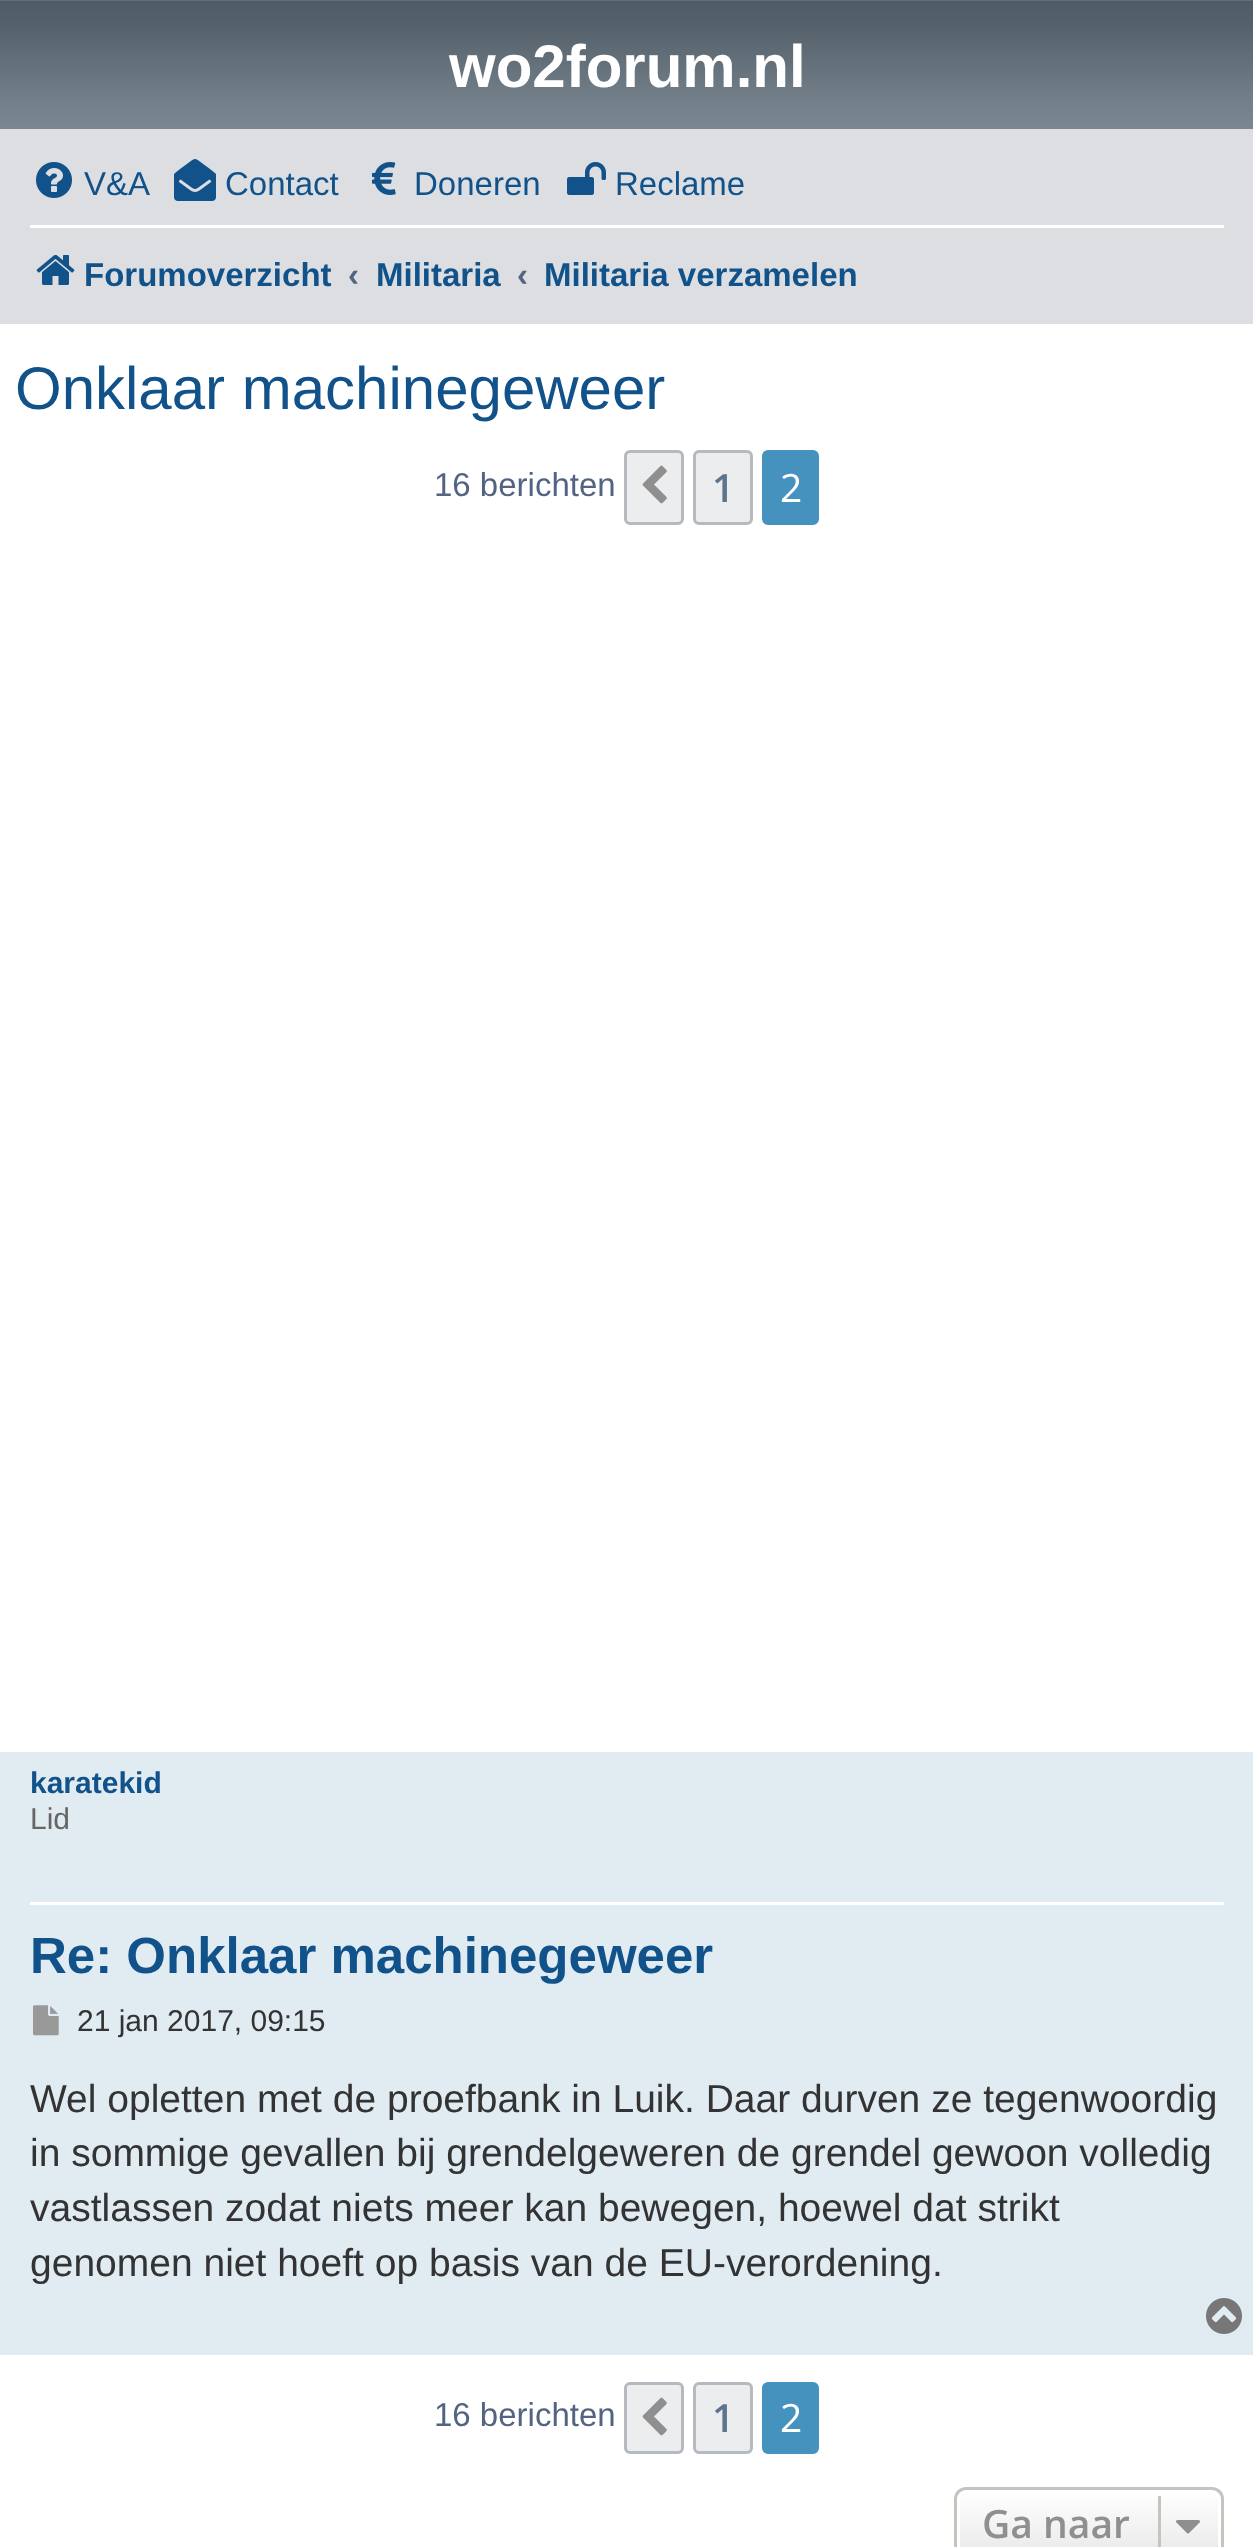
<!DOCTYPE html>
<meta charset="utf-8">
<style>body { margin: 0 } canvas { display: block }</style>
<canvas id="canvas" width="1253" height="2547"></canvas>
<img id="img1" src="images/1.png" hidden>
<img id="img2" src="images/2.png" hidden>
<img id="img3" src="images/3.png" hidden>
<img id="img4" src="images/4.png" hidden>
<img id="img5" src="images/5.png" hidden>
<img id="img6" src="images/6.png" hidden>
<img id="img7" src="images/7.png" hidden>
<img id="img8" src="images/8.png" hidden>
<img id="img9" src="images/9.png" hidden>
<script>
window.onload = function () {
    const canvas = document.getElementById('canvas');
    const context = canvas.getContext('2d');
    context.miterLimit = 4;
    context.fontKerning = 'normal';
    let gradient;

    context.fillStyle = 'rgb(255, 255, 255)';
    context.fillRect(0, 0, 1253, 2547);
    gradient = context.createLinearGradient(627, 0, 627, 132);
    gradient.addColorStop(0, 'rgb(110, 119, 127)');
    gradient.addColorStop(0.01, 'rgb(80, 92, 101)');
    gradient.addColorStop(0.2, 'rgb(86, 98, 107)');
    gradient.addColorStop(0.75, 'rgb(115, 127, 136)');
    gradient.addColorStop(1, 'rgb(124, 136, 145)');
    context.fillStyle = gradient;
    context.fillRect(0, 0, 1253, 129);
    context.fillStyle = 'rgb(220, 222, 226)';
    context.fillRect(0, 129, 1253, 195);
    context.drawImage(document.getElementById('img1'), 36, 162, 36, 36);
    context.drawImage(document.getElementById('img2'), 174, 159, 42, 42);
    context.drawImage(document.getElementById('img3'), 372, 162, 24, 33);
    context.drawImage(document.getElementById('img4'), 567, 162, 39, 33);
    context.fillStyle = 'rgb(255, 255, 255)';
    context.fillRect(30, 225, 1194, 3);
    context.drawImage(document.getElementById('img5'), 36, 254, 39, 31);
    context.fillStyle = 'rgb(236, 237, 238)';
    context.beginPath();
    context.roundRect(625.5, 451.5, 57, 72, 4.5);
    context.fill();
    context.strokeStyle = 'rgb(180, 186, 192)';
    context.lineWidth = 3;
    context.stroke();
    context.drawImage(document.getElementById('img6'), 642, 465, 25, 39);
    context.beginPath();
    context.roundRect(694.5, 451.5, 57, 72, 4.5);
    context.fill();
    context.stroke();
    context.fillStyle = 'rgb(70, 146, 191)';
    context.beginPath();
    context.roundRect(763.5, 451.5, 54, 72, 4.5);
    context.fill();
    context.strokeStyle = 'rgb(70, 146, 191)';
    context.stroke();
    context.fillStyle = 'rgb(225, 235, 242)';
    context.fillRect(0, 1752, 1253, 603);
    context.fillStyle = 'rgb(255, 255, 255)';
    context.fillRect(30, 1902, 1194, 3);
    context.drawImage(document.getElementById('img7'), 33, 2005, 26, 31);
    context.drawImage(document.getElementById('img8'), 1206, 2298, 36, 36);
    context.fillStyle = 'rgb(236, 237, 238)';
    context.beginPath();
    context.roundRect(625.5, 2383.5, 57, 69, 4.5);
    context.fill();
    context.strokeStyle = 'rgb(180, 186, 192)';
    context.stroke();
    context.drawImage(document.getElementById('img6'), 642, 2397, 25, 39);
    context.beginPath();
    context.roundRect(694.5, 2383.5, 57, 69, 4.5);
    context.fill();
    context.stroke();
    context.fillStyle = 'rgb(70, 146, 191)';
    context.beginPath();
    context.roundRect(763.5, 2383.5, 54, 69, 4.5);
    context.fill();
    context.strokeStyle = 'rgb(70, 146, 191)';
    context.stroke();
    context.save();
    context.beginPath();
    context.roundRect(954, 2487, 270, 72, 12);
    context.clip();
    gradient = context.createLinearGradient(1089, 2490, 1089, 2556);
    gradient.addColorStop(0, 'rgb(255, 255, 255)');
    gradient.addColorStop(1, 'rgb(233, 233, 233)');
    context.fillStyle = gradient;
    context.fillRect(954, 2490, 270, 57);
    context.restore();
    context.beginPath();
    context.roundRect(958.5, 2491.5, 261, 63, 7.5);
    context.strokeStyle = 'rgb(255, 255, 255)';
    context.stroke();
    context.beginPath();
    context.roundRect(955.5, 2488.5, 267, 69, 10.5);
    context.strokeStyle = 'rgb(199, 195, 191)';
    context.stroke();
    context.fillStyle = 'rgb(199, 195, 191)';
    context.fillRect(1158, 2496, 3, 51);
    context.drawImage(document.getElementById('img9'), 1176, 2520, 24, 14);
    context.font = 'bold 60px Liberation Sans';
    context.fillStyle = 'rgb(255, 255, 255)';
    context.fillText('wo2forum.nl', 449, 87);
    context.font = '33px Liberation Sans';
    context.fillStyle = 'rgb(16, 82, 137)';
    context.fillText('V&A', 84, 195);
    context.fillText('Contact', 225, 195);
    context.fillText('Doneren', 414, 195);
    context.fillText('Reclame', 615, 195);
    context.font = 'bold 33px Liberation Sans';
    context.fillText('Forumoverzicht', 84, 286);
    context.fillStyle = 'rgb(83, 100, 130)';
    context.fillText('‹', 348, 286);
    context.fillStyle = 'rgb(16, 82, 137)';
    context.fillText('Militaria', 376, 286);
    context.fillStyle = 'rgb(83, 100, 130)';
    context.fillText('‹', 517, 286);
    context.fillStyle = 'rgb(16, 82, 137)';
    context.fillText('Militaria verzamelen', 544, 286);
    context.font = '60px Liberation Sans';
    context.fillText('Onklaar machinegeweer', 15, 409);
    context.font = '33px Liberation Sans';
    context.fillStyle = 'rgb(83, 100, 130)';
    context.fillText('16 berichten', 434, 496);
    context.font = '600 39px Open Sans';
    context.fillStyle = 'rgb(92, 117, 140)';
    context.fillText('1', 712, 502);
    context.font = '39px Open Sans';
    context.fillStyle = 'rgb(255, 255, 255)';
    context.fillText('2', 780, 502);
    context.font = 'bold 30px Liberation Sans';
    context.fillStyle = 'rgb(16, 82, 137)';
    context.fillText('karatekid', 30, 1793);
    context.font = '30px Liberation Sans';
    context.fillStyle = 'rgb(102, 102, 102)';
    context.fillText('Lid', 30, 1829);
    context.font = 'bold 51px Liberation Sans';
    context.fillStyle = 'rgb(16, 82, 137)';
    context.fillText('Re: Onklaar machinegeweer', 30, 1973);
    context.font = '30px Liberation Sans';
    context.fillStyle = 'rgb(51, 51, 51)';
    context.fillText('21 jan 2017, 09:15', 77, 2031);
    context.font = '39px Liberation Sans';
    context.fillText('Wel opletten met de proefbank in Luik. Daar durven ze tegenwoordig', 30, 2112);
    context.fillText('in sommige gevallen bij grendelgeweren de grendel gewoon volledig', 30, 2166);
    context.fillText('vastlassen zodat niets meer kan bewegen, hoewel dat strikt', 30, 2221);
    context.fillText('genomen niet hoeft op basis van de EU-verordening.', 30, 2276);
    context.font = '33px Liberation Sans';
    context.fillStyle = 'rgb(83, 100, 130)';
    context.fillText('16 berichten', 434, 2426);
    context.font = '600 39px Open Sans';
    context.fillStyle = 'rgb(92, 117, 140)';
    context.fillText('1', 712, 2432);
    context.font = '39px Open Sans';
    context.fillStyle = 'rgb(255, 255, 255)';
    context.fillText('2', 780, 2432);
    context.font = '600 39px Open Sans';
    context.fillStyle = 'rgb(143, 143, 143)';
    context.fillText('Ga naar', 982, 2538);
};
</script>
